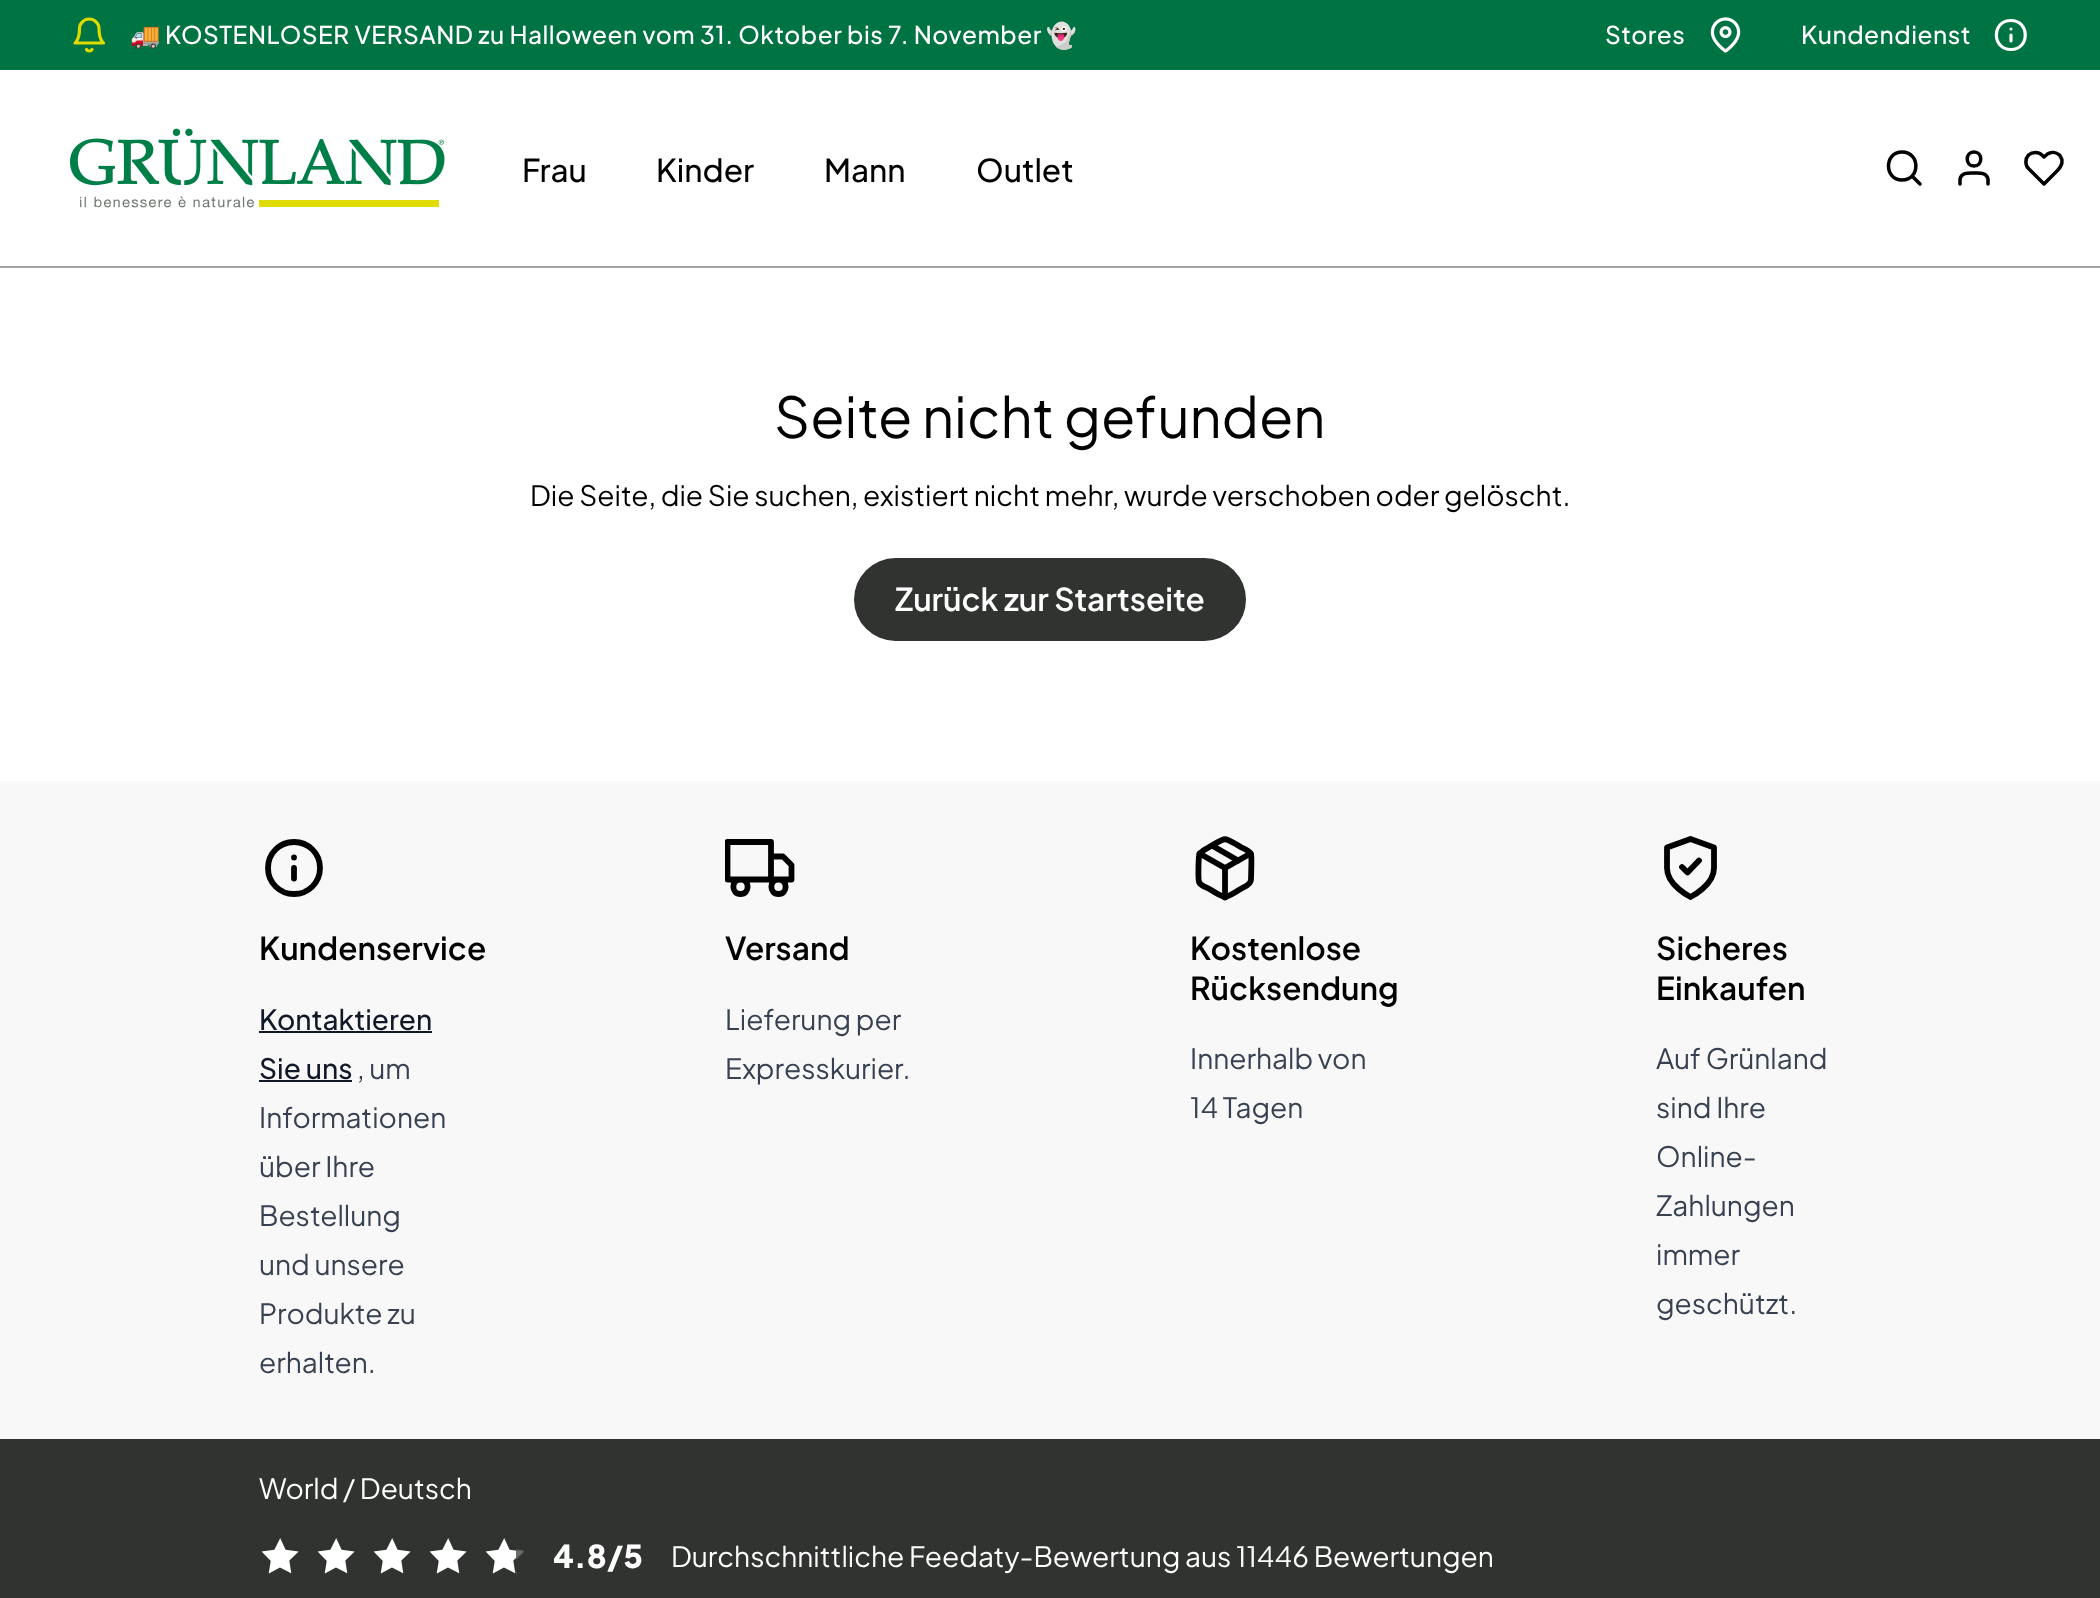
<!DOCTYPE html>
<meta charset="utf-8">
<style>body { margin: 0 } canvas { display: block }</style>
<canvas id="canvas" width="2100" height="1598"></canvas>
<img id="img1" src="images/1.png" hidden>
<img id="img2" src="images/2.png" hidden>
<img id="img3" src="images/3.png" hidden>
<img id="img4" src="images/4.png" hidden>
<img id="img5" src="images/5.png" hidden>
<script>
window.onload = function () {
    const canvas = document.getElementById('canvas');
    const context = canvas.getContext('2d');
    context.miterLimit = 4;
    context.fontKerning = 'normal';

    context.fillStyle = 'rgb(255, 255, 255)';
    context.fillRect(0, 0, 2100, 1598);
    context.fillStyle = 'rgb(0, 115, 67)';
    context.fillRect(0, 0, 2100, 70);
    context.beginPath();
    context.moveTo(99, 28.5);
    context.bezierCurveTo(99, 23.5, 94.5, 19, 89, 19);
    context.bezierCurveTo(84, 19, 79.5, 23.5, 79.5, 28.5);
    context.bezierCurveTo(79.5, 40, 75, 43, 75, 43);
    context.lineTo(103.5, 43);
    context.bezierCurveTo(103.5, 43, 99, 40, 99, 28.5);
    context.closePath();
    context.moveTo(92, 49.5);
    context.bezierCurveTo(91, 51.5, 87.5, 51.5, 86.5, 49.5);
    context.strokeStyle = 'rgb(221, 219, 0)';
    context.lineWidth = 3.2;
    context.lineCap = 'round';
    context.lineJoin = 'round';
    context.stroke();
    context.drawImage(document.getElementById('img1'), 1710, 17, 31, 36);
    context.beginPath();
    context.moveTo(2011, 49.5);
    context.bezierCurveTo(2030, 49.5, 2030, 20.5, 2011, 20.5);
    context.bezierCurveTo(1991.5, 20.5, 1991.5, 49.5, 2011, 49.5);
    context.closePath();
    context.moveTo(2011, 41);
    context.lineTo(2011, 35);
    context.moveTo(2011, 29);
    context.lineTo(2011, 29);
    context.strokeStyle = 'rgb(255, 255, 255)';
    context.stroke();
    context.fillStyle = 'rgb(163, 163, 163)';
    context.fillRect(0, 266, 2100, 2);
    context.drawImage(document.getElementById('img2'), 70, 128, 375, 80);
    context.beginPath();
    context.moveTo(1902, 180);
    context.bezierCurveTo(1920.5, 180, 1920.5, 152, 1902, 152);
    context.bezierCurveTo(1884, 152, 1884, 180, 1902, 180);
    context.closePath();
    context.moveTo(1920, 184);
    context.lineTo(1912, 176);
    context.strokeStyle = 'rgb(0, 0, 0)';
    context.lineWidth = 3.5;
    context.stroke();
    context.beginPath();
    context.moveTo(1988, 184);
    context.lineTo(1988, 179);
    context.bezierCurveTo(1986.5, 172, 1979, 173, 1974, 173);
    context.bezierCurveTo(1969, 173, 1961.5, 172, 1960, 179);
    context.lineTo(1960, 184);
    context.moveTo(1974, 166);
    context.bezierCurveTo(1983, 166, 1983, 152, 1974, 152);
    context.bezierCurveTo(1965, 152, 1965, 166, 1974, 166);
    context.closePath();
    context.stroke();
    context.beginPath();
    context.moveTo(2059.5, 155);
    context.bezierCurveTo(2056, 152, 2051, 151.5, 2047.5, 154);
    context.lineTo(2044, 157);
    context.lineTo(2042, 155);
    context.bezierCurveTo(2038.5, 151.5, 2032.5, 151.5, 2028.5, 155);
    context.bezierCurveTo(2025, 159, 2025, 165, 2028.5, 168.5);
    context.lineTo(2044, 184);
    context.lineTo(2053, 175);
    context.bezierCurveTo(2057, 171, 2063, 166.5, 2062, 160);
    context.bezierCurveTo(2061.5, 158.5, 2060.5, 156.5, 2059.5, 155);
    context.closePath();
    context.stroke();
    context.fillStyle = 'rgb(48, 51, 48)';
    context.beginPath();
    context.roundRect(854, 558, 392, 83, 41.5);
    context.fill();
    context.fillStyle = 'rgb(248, 248, 248)';
    context.fillRect(0, 781, 2100, 658);
    context.beginPath();
    context.moveTo(294, 894);
    context.bezierCurveTo(308.5, 894, 320, 882.5, 320, 868);
    context.bezierCurveTo(320, 853.5, 308.5, 842, 294, 842);
    context.bezierCurveTo(279.5, 842, 268, 853.5, 268, 868);
    context.bezierCurveTo(268, 882.5, 279.5, 894, 294, 894);
    context.closePath();
    context.moveTo(294, 878.5);
    context.lineTo(294, 868);
    context.moveTo(294, 857.5);
    context.lineTo(294, 857.5);
    context.lineWidth = 5.8;
    context.stroke();
    context.fillStyle = 'rgb(17, 24, 39)';
    context.fillRect(259, 1031, 173, 2);
    context.fillRect(259, 1080, 93, 2);
    context.save();
    context.beginPath();
    context.rect(725, 833, 70, 70);
    context.clip();
    context.beginPath();
    context.moveTo(771, 842);
    context.lineTo(727.5, 842);
    context.lineTo(727.5, 879.5);
    context.lineTo(771, 879.5);
    context.closePath();
    context.moveTo(771, 856.5);
    context.lineTo(783, 856.5);
    context.lineTo(791.5, 865);
    context.lineTo(791.5, 879.5);
    context.lineTo(771, 879.5);
    context.closePath();
    context.moveTo(740.5, 894);
    context.bezierCurveTo(750, 894, 750, 879.5, 740.5, 879.5);
    context.bezierCurveTo(731, 879.5, 731, 894, 740.5, 894);
    context.closePath();
    context.moveTo(778.5, 894);
    context.bezierCurveTo(788, 894, 788, 879.5, 778.5, 879.5);
    context.bezierCurveTo(769, 879.5, 769, 894, 778.5, 894);
    context.closePath();
    context.stroke();
    context.restore();
    context.beginPath();
    context.moveTo(1238, 860.5);
    context.lineTo(1212, 845.5);
    context.moveTo(1251, 879.5);
    context.bezierCurveTo(1251, 875, 1252, 857.5, 1251, 854);
    context.bezierCurveTo(1249.5, 850.5, 1244.5, 849, 1241.5, 847.5);
    context.bezierCurveTo(1222, 836.5, 1228, 836.5, 1208.5, 847.5);
    context.bezierCurveTo(1205, 849.5, 1199, 851.5, 1199, 856.5);
    context.bezierCurveTo(1198.5, 861, 1198, 878.5, 1199, 882);
    context.bezierCurveTo(1200.5, 885.5, 1205.5, 887, 1208.5, 888.5);
    context.bezierCurveTo(1228, 899.5, 1222, 899.5, 1241.5, 888.5);
    context.bezierCurveTo(1245, 886.5, 1251, 884.5, 1251, 879.5);
    context.closePath();
    context.stroke();
    context.beginPath();
    context.moveTo(1199.5, 853.5);
    context.lineTo(1225, 868);
    context.lineTo(1250.5, 853.5);
    context.moveTo(1225, 897.5);
    context.lineTo(1225, 868);
    context.stroke();
    context.beginPath();
    context.moveTo(1690.5, 897);
    context.bezierCurveTo(1690.5, 897, 1714, 885.5, 1714, 868);
    context.lineTo(1714, 847.5);
    context.lineTo(1690.5, 839);
    context.lineTo(1667, 847.5);
    context.lineTo(1667, 868);
    context.bezierCurveTo(1667, 885.5, 1690.5, 897, 1690.5, 897);
    context.closePath();
    context.stroke();
    context.beginPath();
    context.moveTo(1699, 860.5);
    context.lineTo(1687.5, 872.5);
    context.lineTo(1682, 867);
    context.stroke();
    context.fillStyle = 'rgb(48, 51, 48)';
    context.fillRect(0, 1439, 2100, 159);
    context.drawImage(document.getElementById('img3'), 260, 1536, 40, 39);
    context.drawImage(document.getElementById('img3'), 316, 1536, 40, 39);
    context.drawImage(document.getElementById('img3'), 372, 1536, 40, 39);
    context.drawImage(document.getElementById('img3'), 428, 1536, 40, 39);
    context.drawImage(document.getElementById('img3'), 484, 1536, 40, 39);
    context.drawImage(document.getElementById('img4'), 260, 1536, 40, 39);
    context.drawImage(document.getElementById('img4'), 316, 1536, 40, 39);
    context.drawImage(document.getElementById('img4'), 372, 1536, 40, 39);
    context.drawImage(document.getElementById('img4'), 428, 1536, 40, 39);
    context.drawImage(document.getElementById('img5'), 484, 1536, 32, 39);
    context.letterSpacing = '0.5px';
    context.font = '24.5px Noto Color Emoji';
    context.fillStyle = 'rgb(255, 255, 255)';
    context.fillText('🚚', 130, 44);
    context.font = '500 24.5px Plus Jakarta Sans';
    context.fillText('KOSTENLOSER VERSAND zu Halloween vom 31. Oktober bis 7. November', 165, 44);
    context.font = '24.5px Noto Color Emoji';
    context.fillText('👻', 1046, 44);
    context.font = '500 24.5px Plus Jakarta Sans';
    context.fillText('Stores', 1605, 44);
    context.fillText('Kundendienst', 1801, 44);
    context.letterSpacing = '0px';
    context.font = '500 31.5px Plus Jakarta Sans';
    context.fillStyle = 'rgb(0, 0, 0)';
    context.fillText('Frau', 522, 182);
    context.fillText('Kinder', 656, 182);
    context.fillText('Mann', 824, 182);
    context.fillText('Outlet', 976, 182);
    context.font = '56px Plus Jakarta Sans';
    context.fillText('Seite nicht gefunden', 774, 438);
    context.font = '28px Plus Jakarta Sans';
    context.fillText('Die Seite, die Sie suchen, existiert nicht mehr, wurde verschoben oder gelöscht.', 530, 506);
    context.font = '600 31.5px Plus Jakarta Sans';
    context.fillStyle = 'rgb(255, 255, 255)';
    context.fillText('Zurück zur Startseite', 895, 611);
    context.fillStyle = 'rgb(0, 0, 0)';
    context.fillText('Kundenservice', 259, 960);
    context.font = '500 28px Plus Jakarta Sans';
    context.fillStyle = 'rgb(17, 24, 39)';
    context.fillText('Kontaktieren', 259, 1030);
    context.fillText('Sie uns', 259, 1079);
    context.font = '28px Plus Jakarta Sans';
    context.fillStyle = 'rgb(55, 65, 81)';
    context.fillText(', um', 357, 1079);
    context.fillText('Informationen', 259, 1128);
    context.fillText('über Ihre', 259, 1177);
    context.fillText('Bestellung', 259, 1226);
    context.fillText('und unsere', 259, 1275);
    context.fillText('Produkte zu', 259, 1324);
    context.fillText('erhalten.', 259, 1373);
    context.font = '600 31.5px Plus Jakarta Sans';
    context.fillStyle = 'rgb(0, 0, 0)';
    context.fillText('Versand', 725, 960);
    context.font = '28px Plus Jakarta Sans';
    context.fillStyle = 'rgb(55, 65, 81)';
    context.fillText('Lieferung per', 725, 1030);
    context.fillText('Expresskurier.', 725, 1079);
    context.font = '600 31.5px Plus Jakarta Sans';
    context.fillStyle = 'rgb(0, 0, 0)';
    context.fillText('Kostenlose', 1190, 960);
    context.fillText('Rücksendung', 1190, 1000);
    context.font = '28px Plus Jakarta Sans';
    context.fillStyle = 'rgb(55, 65, 81)';
    context.fillText('Innerhalb von', 1190, 1069);
    context.fillText('14 Tagen', 1190, 1118);
    context.font = '600 31.5px Plus Jakarta Sans';
    context.fillStyle = 'rgb(0, 0, 0)';
    context.fillText('Sicheres', 1656, 960);
    context.fillText('Einkaufen', 1656, 1000);
    context.font = '28px Plus Jakarta Sans';
    context.fillStyle = 'rgb(55, 65, 81)';
    context.fillText('Auf Grünland', 1656, 1069);
    context.fillText('sind Ihre', 1656, 1118);
    context.fillText('Online-', 1656, 1167);
    context.fillText('Zahlungen', 1656, 1216);
    context.fillText('immer', 1656, 1265);
    context.fillText('geschützt.', 1656, 1314);
    context.fillStyle = 'rgb(255, 255, 255)';
    context.fillText('World / Deutsch', 259, 1499);
    context.font = '800 31.5px Plus Jakarta Sans';
    context.fillText('4.8/5', 553, 1568);
    context.font = '28px Plus Jakarta Sans';
    context.fillText('Durchschnittliche Feedaty-Bewertung aus 11446 Bewertungen', 671, 1567);
};
</script>
